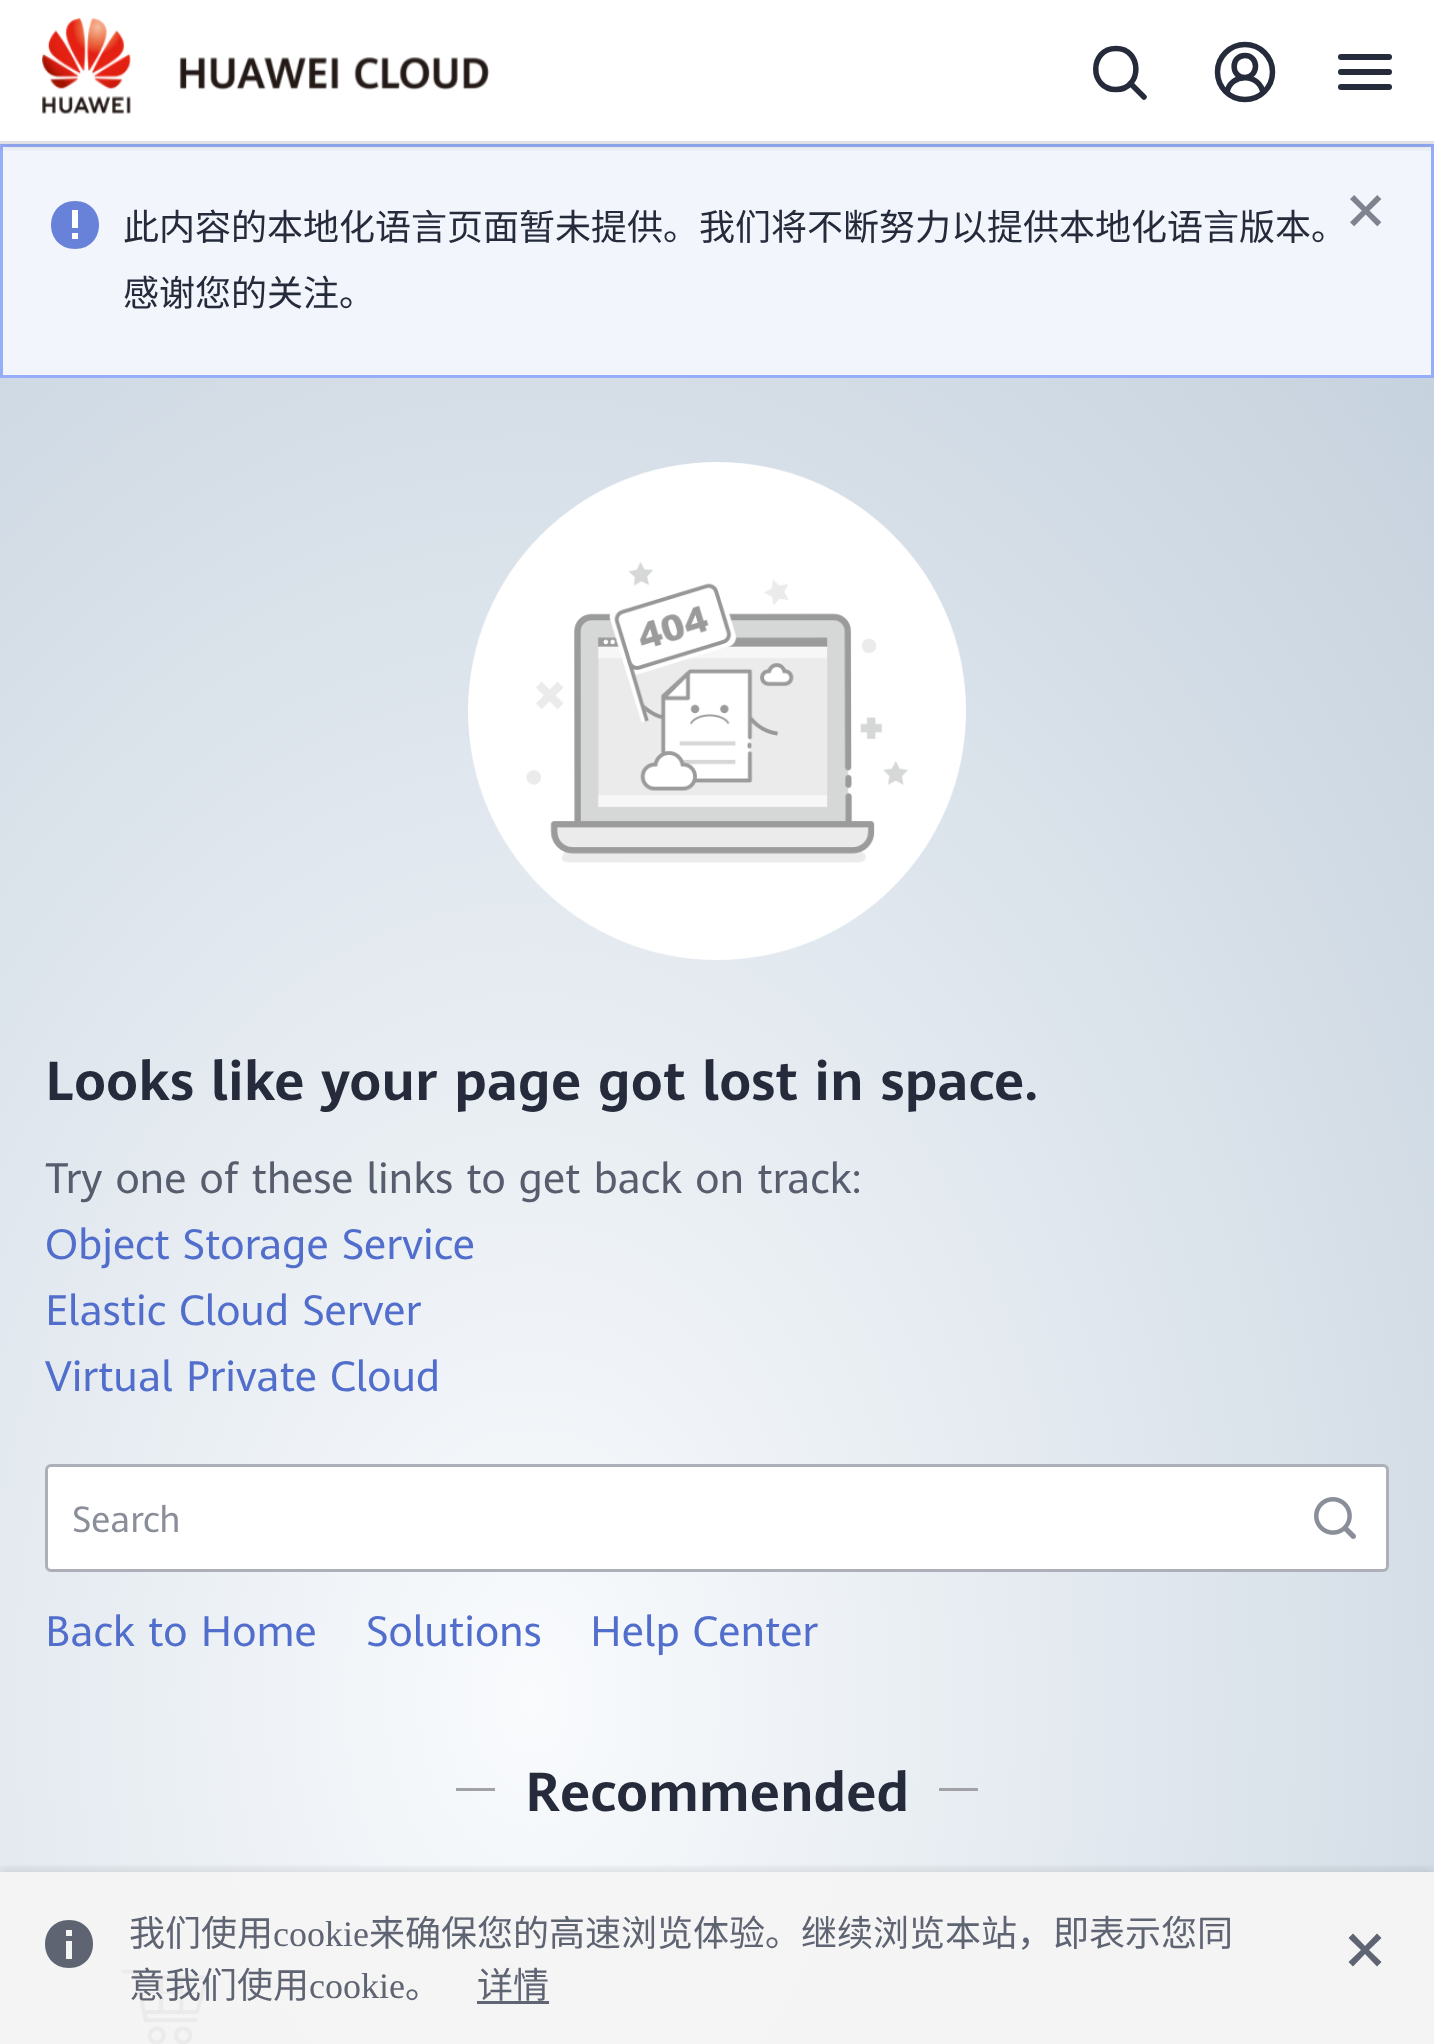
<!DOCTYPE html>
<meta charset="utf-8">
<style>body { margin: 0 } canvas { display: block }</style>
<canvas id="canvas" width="1434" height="2044"></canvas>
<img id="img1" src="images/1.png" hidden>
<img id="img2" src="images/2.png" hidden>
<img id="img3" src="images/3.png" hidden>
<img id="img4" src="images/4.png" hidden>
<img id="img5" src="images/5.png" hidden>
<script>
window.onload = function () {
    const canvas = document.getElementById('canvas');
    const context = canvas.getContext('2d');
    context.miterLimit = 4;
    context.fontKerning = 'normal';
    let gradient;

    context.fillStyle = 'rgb(255, 255, 255)';
    context.fillRect(0, 0, 1434, 2044);
    context.fillStyle = 'rgb(242, 245, 252)';
    context.beginPath();
    context.rect(1.5, 145.5, 1431, 231);
    context.fill();
    context.strokeStyle = 'rgb(150, 173, 250)';
    context.lineWidth = 3;
    context.stroke();
    context.save();
    context.beginPath();
    context.rect(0, 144, 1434, 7);
    context.clip();
    context.fillStyle = 'rgba(0, 0, 0, 0.1)';
    context.filter = 'blur(4.5px)';
    context.beginPath();
    context.rect(0, 3, 1434, 144);
    context.fill();
    context.filter = 'none';
    context.restore();
    context.fillStyle = 'rgb(223, 225, 230)';
    context.fillRect(0, 141, 1434, 3);
    context.drawImage(document.getElementById('img1'), 42, 18, 448, 96);
    context.beginPath();
    context.moveTo(1116, 48.5);
    context.bezierCurveTo(1089, 48.5, 1089, 89.5, 1116, 89.5);
    context.bezierCurveTo(1142.5, 89.5, 1142.5, 48.5, 1116, 48.5);
    context.closePath();
    context.strokeStyle = 'rgb(37, 43, 58)';
    context.lineWidth = 5.5;
    context.stroke();
    context.beginPath();
    context.moveTo(1130.5, 83.5);
    context.lineTo(1144, 97);
    context.lineCap = 'round';
    context.stroke();
    context.beginPath();
    context.arc(1245, 72, 27.5, 0, 2 * Math.PI);
    context.stroke();
    context.beginPath();
    context.moveTo(1245, 77.5);
    context.bezierCurveTo(1259, 77, 1259, 55.5, 1245, 55.5);
    context.bezierCurveTo(1230.5, 55.5, 1230.5, 77.5, 1245, 77.5);
    context.closePath();
    context.moveTo(1263, 93.5);
    context.bezierCurveTo(1260.5, 73, 1230.5, 72.5, 1227, 92.5);
    context.lineCap = 'butt';
    context.stroke();
    context.fillStyle = 'rgb(37, 43, 58)';
    context.beginPath();
    context.roundRect(1338, 54, 54, 6, 3);
    context.fill();
    context.beginPath();
    context.roundRect(1338, 69, 54, 6, 3);
    context.fill();
    context.beginPath();
    context.roundRect(1338, 84, 54, 6, 3);
    context.fill();
    context.fillStyle = 'rgb(255, 255, 255)';
    context.beginPath();
    context.arc(75, 225, 24, 0, 2 * Math.PI);
    context.fill();
    context.fillStyle = 'rgb(104, 130, 218)';
    context.beginPath();
    context.moveTo(75, 201);
    context.bezierCurveTo(43, 201, 43, 249, 75, 249);
    context.bezierCurveTo(107, 249, 107, 201, 75, 201);
    context.closePath();
    context.moveTo(78, 239);
    context.lineTo(72, 239);
    context.lineTo(72, 233);
    context.lineTo(78, 233);
    context.closePath();
    context.moveTo(78, 228);
    context.lineTo(72, 228);
    context.lineTo(72, 210);
    context.lineTo(78, 210);
    context.closePath();
    context.fill();
    context.drawImage(document.getElementById('img2'), 1350, 195, 32, 32);
    gradient = context.createRadialGradient(531, 1162.44, 0, 531, 1162.44, 1278);
    gradient.addColorStop(0, 'rgb(249, 251, 253)');
    gradient.addColorStop(1, 'rgb(198, 210, 222)');
    context.fillStyle = gradient;
    context.beginPath();
    context.rect(0, 378, 1434, 1494);
    context.save();
    context.clip();
    context.scale(1, 1869 / 1278);
    context.fillRect(0, 0, 1434, 1398);
    context.restore();
    gradient = context.createRadialGradient(531, 1162.44, 0, 531, 1162.44, 1278);
    gradient.addColorStop(0, 'rgb(245, 245, 245)');
    gradient.addColorStop(1, 'rgb(243, 243, 244)');
    context.fillStyle = gradient;
    context.beginPath();
    context.rect(0, 1872, 1434, 172);
    context.save();
    context.clip();
    context.scale(1, 1869 / 1278);
    context.fillRect(0, 0, 1434, 1398);
    context.restore();
    context.drawImage(document.getElementById('img3'), 468, 462, 498, 498);
    context.fillStyle = 'rgb(255, 255, 255)';
    context.beginPath();
    context.roundRect(46.5, 1465.5, 1341, 105, 4.5);
    context.fill();
    context.strokeStyle = 'rgb(173, 176, 184)';
    context.lineWidth = 3;
    context.stroke();
    context.drawImage(document.getElementById('img4'), 1314, 1497, 42, 42);
    context.fillStyle = 'rgb(160, 162, 168)';
    context.fillRect(456, 1788, 39, 3);
    context.fillRect(939, 1788, 39, 3);
    context.drawImage(document.getElementById('img5'), 121, 1969, 88, 75);
    context.save();
    context.beginPath();
    context.rect(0, 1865, 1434, 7);
    context.clip();
    context.fillStyle = 'rgba(0, 0, 0, 0.1)';
    context.filter = 'blur(4.5px)';
    context.beginPath();
    context.rect(0, 1869, 1434, 174);
    context.fill();
    context.filter = 'none';
    context.restore();
    context.fillStyle = 'rgb(95, 100, 115)';
    context.beginPath();
    context.moveTo(69, 1920);
    context.bezierCurveTo(37, 1920, 37, 1968, 69, 1968);
    context.bezierCurveTo(101, 1968, 101, 1920, 69, 1920);
    context.closePath();
    context.moveTo(66, 1930);
    context.lineTo(72, 1930);
    context.lineTo(72, 1936);
    context.lineTo(66, 1936);
    context.closePath();
    context.moveTo(66, 1959);
    context.lineTo(66, 1941);
    context.lineTo(72, 1941);
    context.lineTo(72, 1959);
    context.closePath();
    context.fill('evenodd');
    context.fillStyle = 'rgba(87, 93, 108, 0.95)';
    context.fillRect(477, 2001, 72, 3);
    context.fillStyle = 'rgb(95, 100, 115)';
    context.beginPath();
    context.moveTo(1381.5, 1938);
    context.lineTo(1377, 1933.5);
    context.lineTo(1365, 1946);
    context.lineTo(1353, 1933.5);
    context.lineTo(1348.5, 1938);
    context.lineTo(1361, 1950);
    context.lineTo(1348.5, 1962);
    context.lineTo(1353, 1966.5);
    context.lineTo(1365, 1954);
    context.lineTo(1377, 1966.5);
    context.lineTo(1381.5, 1962);
    context.lineTo(1369, 1950);
    context.closePath();
    context.fill();
    context.font = '36px Noto Sans CJK SC';
    context.fillStyle = 'rgb(37, 43, 58)';
    context.fillText('此内容的本地化语言页面暂未提供。我们将不断努力以提供本地化语言版本。', 123, 240);
    context.fillText('感谢您的关注。', 123, 306);
    context.font = 'bold 54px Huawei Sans';
    context.fillText('Looks like your page got lost in space.', 45, 1100);
    context.font = '42px Huawei Sans';
    context.fillStyle = 'rgb(87, 93, 108)';
    context.fillText('Try one of these links to get back on track:', 45, 1193);
    context.fillStyle = 'rgb(82, 110, 204)';
    context.fillText('Object Storage Service', 45, 1259);
    context.fillText('Elastic Cloud Server', 45, 1325);
    context.fillText('Virtual Private Cloud', 45, 1391);
    context.font = '36px Huawei Sans';
    context.fillStyle = 'rgb(138, 142, 153)';
    context.fillText('Search', 72, 1532);
    context.font = '42px Huawei Sans';
    context.fillStyle = 'rgb(82, 110, 204)';
    context.fillText('Back to Home', 45, 1646);
    context.fillText('Solutions', 366, 1646);
    context.fillText('Help Center', 590, 1646);
    context.font = 'bold 54px Huawei Sans';
    context.fillStyle = 'rgb(37, 43, 58)';
    context.fillText('Recommended', 525, 1811);
    context.font = '36px Noto Sans CJK SC';
    context.fillStyle = 'rgb(95, 100, 115)';
    context.fillText('我们使用', 129, 1946);
    context.font = '36px Liberation Serif';
    context.fillText('cookie', 273, 1946);
    context.font = '36px Noto Sans CJK SC';
    context.fillText('来确保您的高速浏览体验。继续浏览本站，即表示您同', 369, 1946);
    context.fillText('意我们使用', 129, 1998);
    context.font = '36px Liberation Serif';
    context.fillText('cookie', 309, 1998);
    context.font = '36px Noto Sans CJK SC';
    context.fillText('。', 405, 1998);
    context.fillText('详情', 477, 1998);
};
</script>
